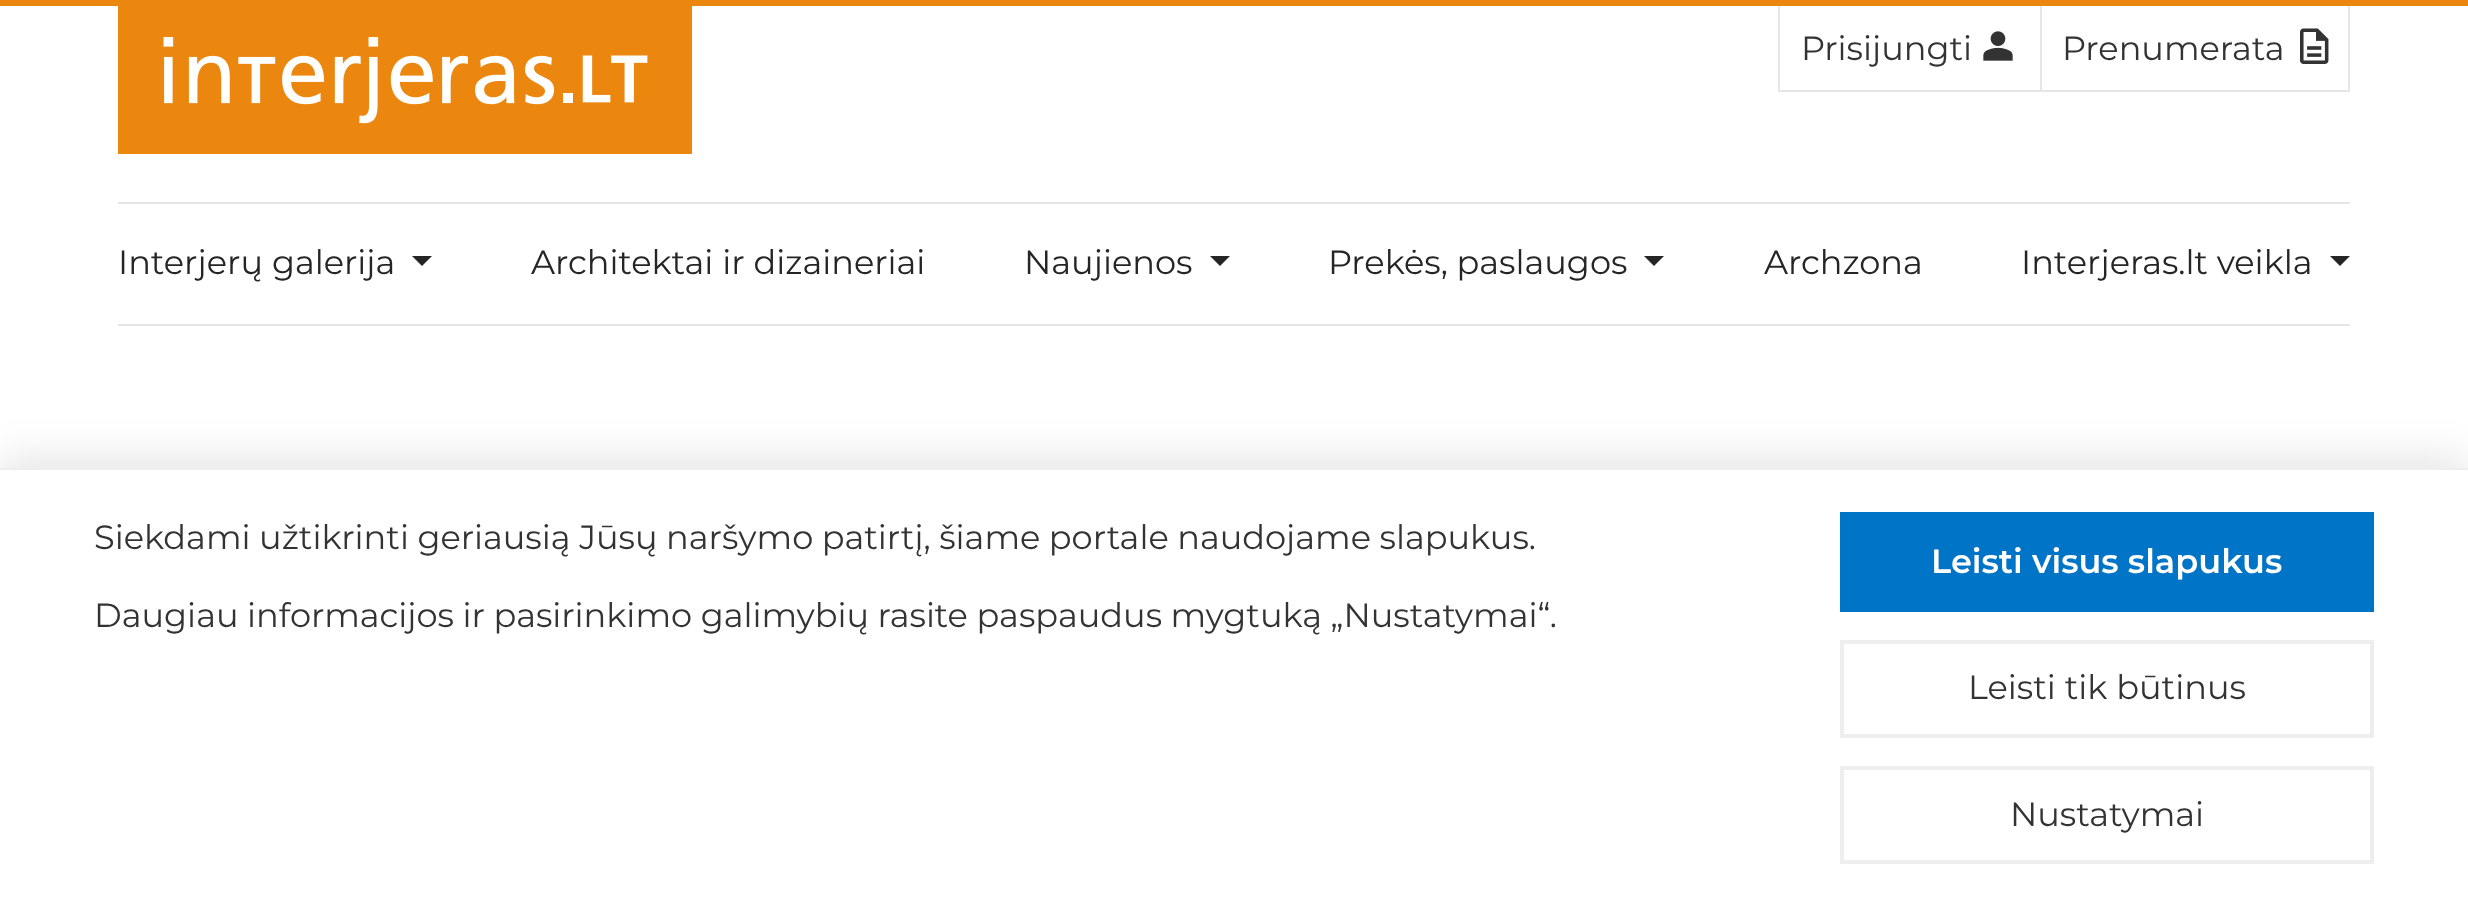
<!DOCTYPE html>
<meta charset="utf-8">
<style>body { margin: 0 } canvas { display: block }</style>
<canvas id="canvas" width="2468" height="913"></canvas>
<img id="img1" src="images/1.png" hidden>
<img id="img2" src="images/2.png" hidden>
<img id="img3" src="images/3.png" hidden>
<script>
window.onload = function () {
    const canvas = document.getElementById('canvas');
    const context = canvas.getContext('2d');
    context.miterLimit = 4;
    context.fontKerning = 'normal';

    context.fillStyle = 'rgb(255, 255, 255)';
    context.fillRect(0, 0, 2468, 913);
    context.fillStyle = 'rgb(235, 135, 15)';
    context.fillRect(0, 0, 2468, 6);
    context.drawImage(document.getElementById('img1'), 118, 6, 574, 148);
    context.fillStyle = 'rgb(230, 230, 230)';
    context.fillRect(1778, 90, 262, 2);
    context.fillRect(1778, 6, 2, 86);
    context.drawImage(document.getElementById('img2'), 1983, 31, 30, 30);
    context.fillRect(2348, 6, 2, 86);
    context.fillRect(2040, 90, 310, 2);
    context.fillRect(2040, 6, 2, 86);
    context.drawImage(document.getElementById('img3'), 2300, 28, 29, 36);
    context.fillRect(118, 202, 2232, 2);
    context.fillRect(118, 324, 2232, 2);
    context.fillStyle = 'rgb(37, 37, 37)';
    context.beginPath();
    context.moveTo(412, 256);
    context.lineTo(432, 256);
    context.lineTo(422, 266);
    context.closePath();
    context.fill();
    context.beginPath();
    context.moveTo(1210, 256);
    context.lineTo(1230, 256);
    context.lineTo(1220, 266);
    context.closePath();
    context.fill();
    context.beginPath();
    context.moveTo(1644, 256);
    context.lineTo(1664, 256);
    context.lineTo(1654, 266);
    context.closePath();
    context.fill();
    context.beginPath();
    context.moveTo(2330, 256);
    context.lineTo(2350, 256);
    context.lineTo(2340, 266);
    context.closePath();
    context.fill();
    context.fillStyle = 'rgba(0, 0, 0, 0.1)';
    context.filter = 'blur(20px)';
    context.beginPath();
    context.rect(0, 458, 2468, 446);
    context.fill();
    context.filter = 'none';
    context.fillStyle = 'rgb(255, 255, 255)';
    context.fillRect(0, 470, 2468, 443);
    context.fillStyle = 'rgb(238, 238, 238)';
    context.fillRect(0, 468, 2468, 2);
    context.fillStyle = 'rgb(0, 116, 199)';
    context.fillRect(1840, 512, 534, 100);
    context.strokeStyle = 'rgb(238, 238, 238)';
    context.lineWidth = 4;
    context.strokeRect(1842, 642, 530, 94);
    context.strokeRect(1842, 768, 530, 94);
    context.font = '100 33.6px Montserrat';
    context.fillStyle = 'rgb(51, 51, 51)';
    context.fillText('Prisijungti', 1801, 60);
    context.fillText('Prenumerata', 2062, 60);
    context.fillStyle = 'rgb(37, 37, 37)';
    context.fillText('Interjerų galerija', 118, 274);
    context.fillText('Architektai ir dizaineriai', 531, 274);
    context.fillText('Naujienos', 1024, 274);
    context.fillText('Prekės, paslaugos', 1328, 274);
    context.fillText('Archzona', 1764, 274);
    context.fillText('Interjeras.lt veikla', 2021, 274);
    context.wordSpacing = '-0.25px';
    context.fillStyle = 'rgb(51, 51, 51)';
    context.fillText('Siekdami užtikrinti geriausią Jūsų naršymo patirtį, šiame portale naudojame slapukus.', 94, 549);
    context.fillText('Daugiau informacijos ir pasirinkimo galimybių rasite paspaudus mygtuką „Nustatymai“.', 94, 627);
    context.wordSpacing = '0px';
    context.font = '100 33.6px "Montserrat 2"';
    context.fillStyle = 'rgb(255, 255, 255)';
    context.fillText('Leisti visus slapukus', 1931, 573);
    context.font = '100 33.6px Montserrat';
    context.fillStyle = 'rgb(51, 51, 51)';
    context.fillText('Leisti tik būtinus', 1968, 699);
    context.fillText('Nustatymai', 2010, 826);
};
</script>
